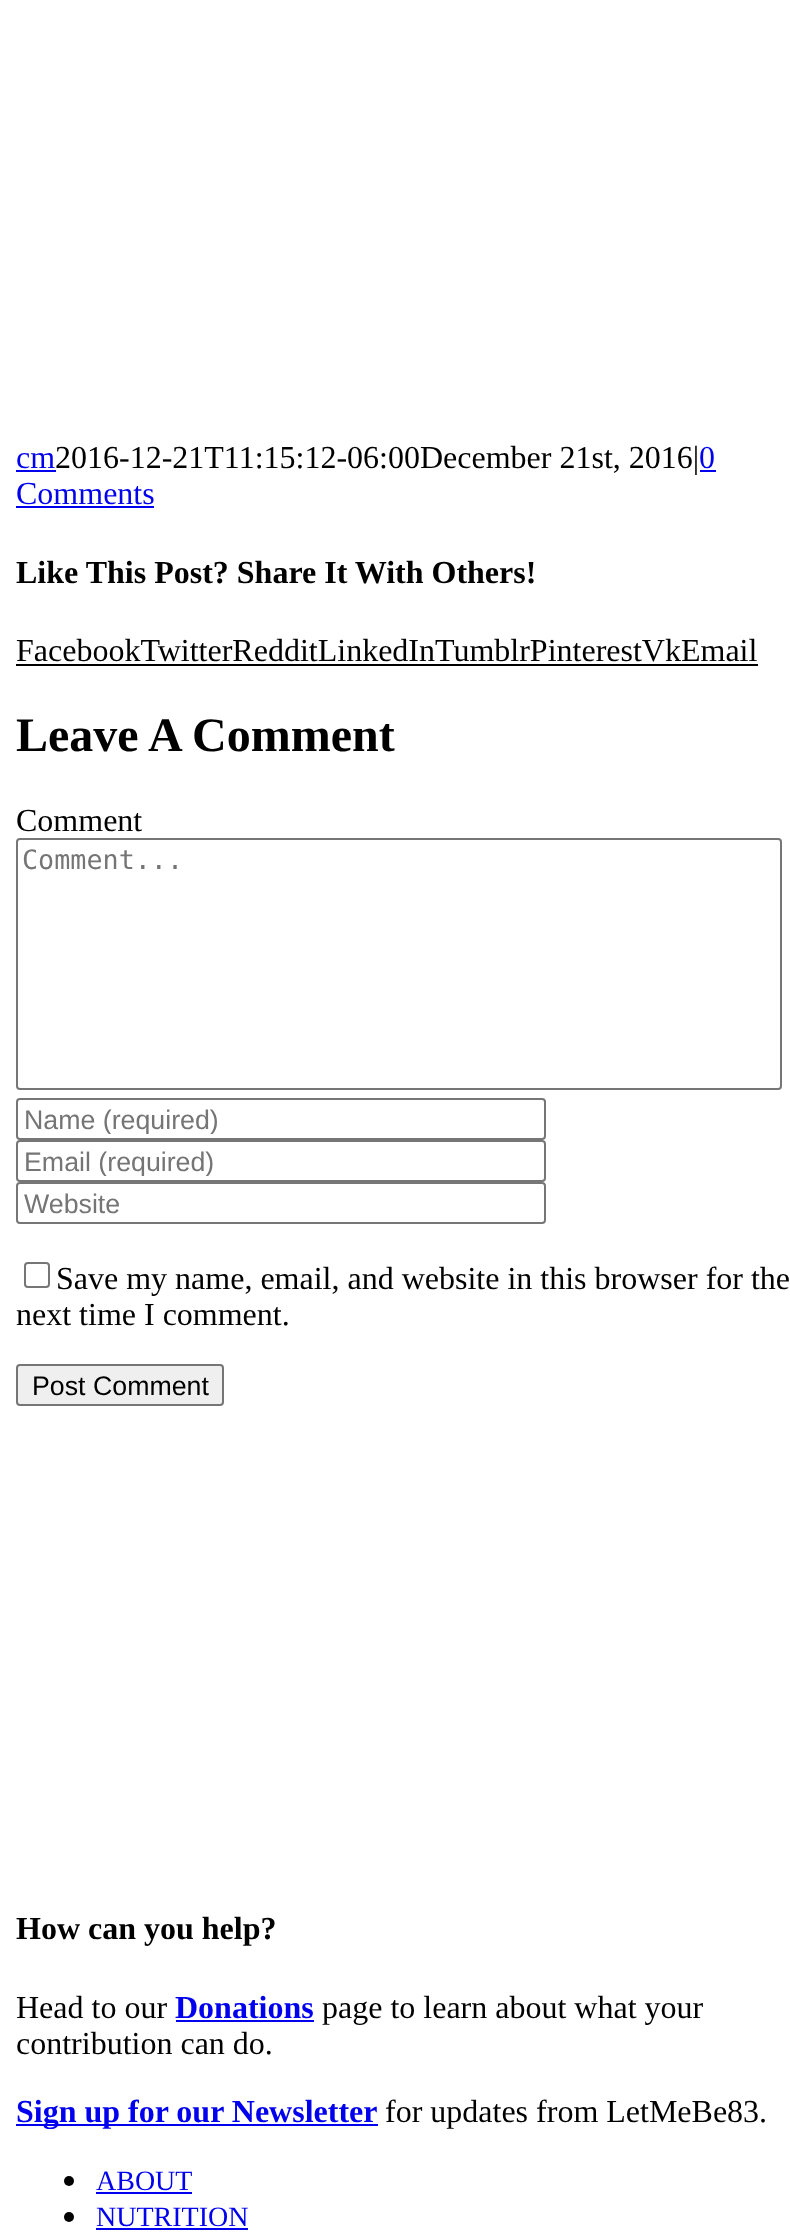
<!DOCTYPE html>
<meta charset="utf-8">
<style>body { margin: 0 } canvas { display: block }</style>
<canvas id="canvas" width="790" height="2240"></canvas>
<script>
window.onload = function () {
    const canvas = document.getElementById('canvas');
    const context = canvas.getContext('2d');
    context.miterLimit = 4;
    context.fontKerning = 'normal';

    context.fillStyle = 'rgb(255, 255, 255)';
    context.fillRect(0, 0, 790, 2240);
    context.fillStyle = 'rgb(0, 0, 238)';
    context.fillRect(16, 470, 40, 2);
    context.fillRect(700, 470, 16, 2);
    context.fillRect(16, 506, 138, 2);
    context.fillStyle = 'rgb(0, 0, 0)';
    context.fillRect(16, 664, 742, 2);
    context.beginPath();
    context.roundRect(17, 839, 764, 250, 3);
    context.strokeStyle = 'rgb(118, 118, 118)';
    context.lineWidth = 2;
    context.stroke();
    context.beginPath();
    context.roundRect(17, 1099, 528, 40, 3);
    context.stroke();
    context.beginPath();
    context.roundRect(17, 1141, 528, 40, 3);
    context.stroke();
    context.beginPath();
    context.roundRect(17, 1183, 528, 40, 3);
    context.stroke();
    context.beginPath();
    context.roundRect(25, 1263, 24, 24, 3);
    context.stroke();
    context.fillStyle = 'rgb(239, 239, 239)';
    context.beginPath();
    context.roundRect(17, 1365, 206, 40, 3);
    context.fill();
    context.stroke();
    context.fillStyle = 'rgb(0, 0, 238)';
    context.fillRect(176, 2020, 138, 2);
    context.fillRect(16, 2124, 362, 2);
    context.fillStyle = 'rgb(0, 0, 0)';
    context.beginPath();
    context.arc(69, 2181, 5, 0, 2 * Math.PI);
    context.fill();
    context.fillStyle = 'rgb(0, 0, 238)';
    context.fillRect(96, 2192, 96, 2);
    context.fillStyle = 'rgb(0, 0, 0)';
    context.beginPath();
    context.arc(69, 2217, 5, 0, 2 * Math.PI);
    context.fill();
    context.fillStyle = 'rgb(0, 0, 238)';
    context.fillRect(96, 2228, 152, 2);
    context.font = '32px Liberation Serif';
    context.fillText('cm', 16, 468);
    context.fillStyle = 'rgb(0, 0, 0)';
    context.fillText('2016-12-21T11:15:12-06:00December 21st, 2016|', 55, 468);
    context.fillStyle = 'rgb(0, 0, 238)';
    context.fillText('0', 699, 468);
    context.fillText('Comments', 16, 504);
    context.font = 'bold 32px Liberation Serif';
    context.fillStyle = 'rgb(0, 0, 0)';
    context.fillText('Like This Post? Share It With Others!', 16, 583);
    context.font = '32px Liberation Serif';
    context.fillText('FacebookTwitterRedditLinkedInTumblrPinterestVkEmail', 16, 661);
    context.font = 'bold 48px Liberation Serif';
    context.fillText('Leave A Comment', 16, 751);
    context.font = '32px Liberation Serif';
    context.fillText('Comment', 16, 831);
    context.font = '26.75px DejaVu Sans Mono';
    context.fillStyle = 'rgb(117, 117, 117)';
    context.fillText('Comment...', 22, 869);
    context.save();
    context.beginPath();
    context.rect(24, 1104, 514, 30);
    context.clip();
    context.font = '26.75px Liberation Sans';
    context.fillText('Name (required)', 24, 1129);
    context.restore();
    context.save();
    context.beginPath();
    context.rect(24, 1146, 514, 30);
    context.clip();
    context.font = '26.75px Liberation Sans';
    context.fillText('Email (required)', 24, 1171);
    context.restore();
    context.font = '26.75px Liberation Sans';
    context.fillText('Website', 24, 1213);
    context.font = '32px Liberation Serif';
    context.fillStyle = 'rgb(0, 0, 0)';
    context.fillText('Save my name, email, and website in this browser for the', 56, 1289);
    context.fillText('next time I comment.', 16, 1325);
    context.font = '26.75px Liberation Sans';
    context.fillText('Post Comment', 32, 1395);
    context.font = 'bold 32px Liberation Serif';
    context.fillText('How can you help?', 16, 1939);
    context.font = '32px Liberation Serif';
    context.fillText('Head to our', 16, 2018);
    context.font = 'bold 32px Liberation Serif';
    context.fillStyle = 'rgb(0, 0, 238)';
    context.fillText('Donations', 175, 2018);
    context.font = '32px Liberation Serif';
    context.fillStyle = 'rgb(0, 0, 0)';
    context.fillText('page to learn about what your', 322, 2018);
    context.fillText('contribution can do.', 16, 2054);
    context.font = 'bold 32px Liberation Serif';
    context.fillStyle = 'rgb(0, 0, 238)';
    context.fillText('Sign up for our Newsletter', 16, 2122);
    context.font = '32px Liberation Serif';
    context.fillStyle = 'rgb(0, 0, 0)';
    context.fillText('for updates from LetMeBe83.', 385, 2122);
    context.font = '28px Liberation Serif';
    context.fillStyle = 'rgb(0, 0, 238)';
    context.fillText('ABOUT', 96, 2190);
    context.fillText('NUTRITION', 96, 2226);
};
</script>
